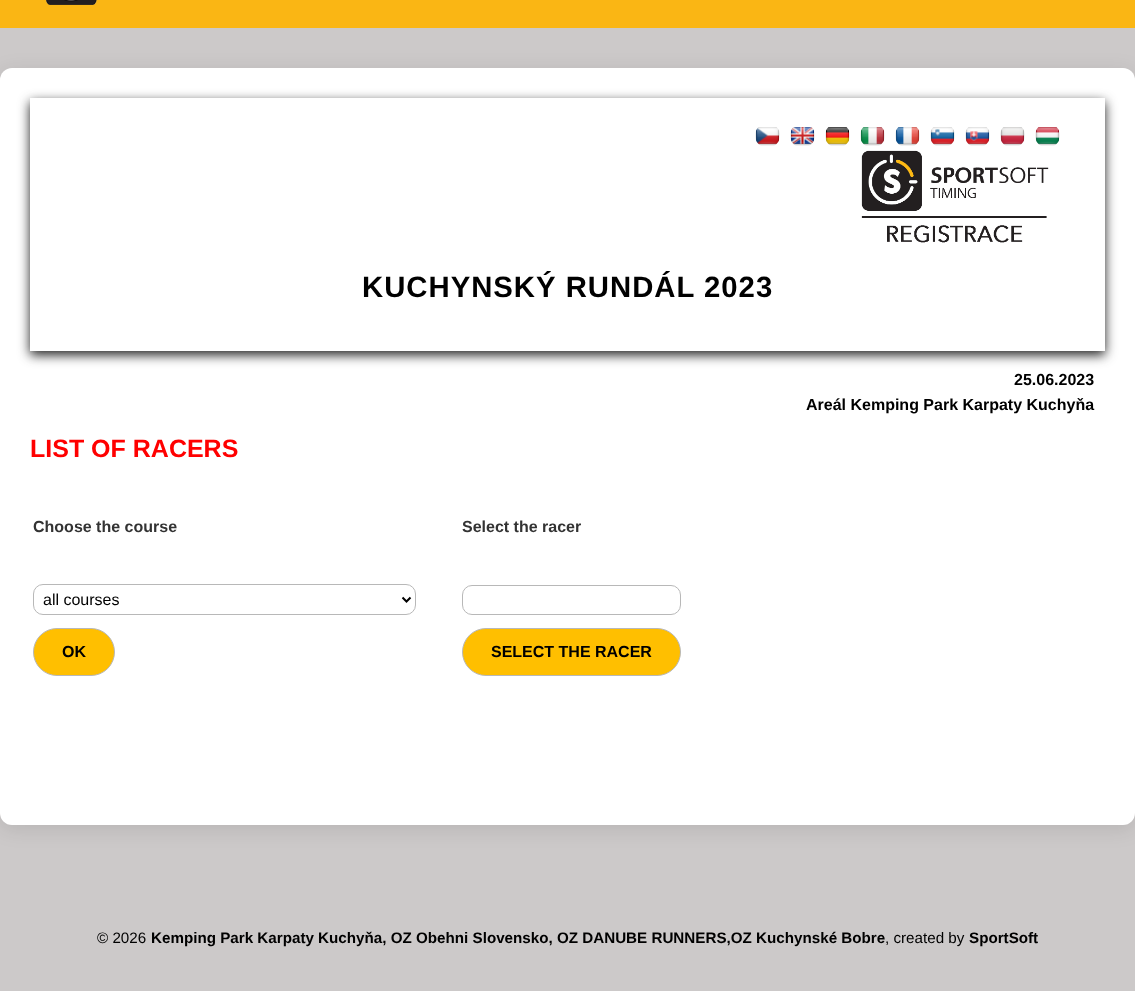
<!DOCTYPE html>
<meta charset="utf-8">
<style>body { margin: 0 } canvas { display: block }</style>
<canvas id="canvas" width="1135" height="991"></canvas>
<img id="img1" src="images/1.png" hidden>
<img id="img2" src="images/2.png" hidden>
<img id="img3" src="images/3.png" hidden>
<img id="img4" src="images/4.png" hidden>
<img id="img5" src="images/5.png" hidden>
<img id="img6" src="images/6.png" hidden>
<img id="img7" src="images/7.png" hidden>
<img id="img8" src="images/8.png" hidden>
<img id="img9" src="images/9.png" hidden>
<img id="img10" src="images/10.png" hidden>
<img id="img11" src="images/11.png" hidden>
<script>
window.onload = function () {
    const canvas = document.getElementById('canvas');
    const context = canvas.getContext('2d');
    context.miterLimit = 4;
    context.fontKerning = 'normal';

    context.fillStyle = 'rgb(204, 201, 201)';
    context.fillRect(0, 0, 1135, 991);
    context.fillStyle = 'rgb(250, 182, 20)';
    context.fillRect(0, 0, 1135, 28);
    context.fillStyle = 'rgba(0, 0, 0, 0.1)';
    context.filter = 'blur(10px)';
    context.beginPath();
    context.roundRect(0, 72, 1135, 757, 12);
    context.fill();
    context.filter = 'none';
    context.fillStyle = 'rgb(255, 255, 255)';
    context.beginPath();
    context.roundRect(0, 68, 1135, 757, 12);
    context.fill();
    context.drawImage(document.getElementById('img1'), 46, 0, 51, 5);
    context.save();
    context.beginPath();
    context.moveTo(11, 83);
    context.lineTo(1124, 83);
    context.lineTo(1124, 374);
    context.lineTo(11, 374);
    context.closePath();
    context.moveTo(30, 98);
    context.lineTo(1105, 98);
    context.lineTo(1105, 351);
    context.lineTo(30, 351);
    context.closePath();
    context.clip('evenodd');
    context.fillStyle = 'rgb(32, 32, 32)';
    context.filter = 'blur(6px)';
    context.beginPath();
    context.rect(30, 102, 1075, 253);
    context.fill();
    context.filter = 'none';
    context.restore();
    context.drawImage(document.getElementById('img2'), 755, 127, 25, 19);
    context.drawImage(document.getElementById('img3'), 790, 127, 25, 19);
    context.drawImage(document.getElementById('img4'), 825, 127, 25, 19);
    context.drawImage(document.getElementById('img5'), 860, 127, 25, 19);
    context.drawImage(document.getElementById('img6'), 895, 127, 25, 19);
    context.drawImage(document.getElementById('img7'), 930, 127, 25, 19);
    context.drawImage(document.getElementById('img8'), 965, 127, 25, 19);
    context.drawImage(document.getElementById('img9'), 1000, 127, 25, 19);
    context.drawImage(document.getElementById('img10'), 1035, 127, 25, 19);
    context.drawImage(document.getElementById('img11'), 861, 150, 188, 93);
    context.beginPath();
    context.roundRect(33.5, 584.5, 382, 30, 9.5);
    context.strokeStyle = 'rgb(184, 184, 184)';
    context.stroke();
    context.beginPath();
    context.moveTo(402.5, 597.5);
    context.lineTo(406.5, 601.5);
    context.lineTo(410.5, 597.5);
    context.strokeStyle = 'rgb(0, 0, 0)';
    context.lineWidth = 2;
    context.stroke();
    context.beginPath();
    context.roundRect(462.5, 585.5, 218, 29, 9.5);
    context.strokeStyle = 'rgb(184, 184, 184)';
    context.lineWidth = 1;
    context.stroke();
    context.fillStyle = 'rgb(255, 191, 0)';
    context.beginPath();
    context.roundRect(33.5, 628.5, 81, 47, 23.5);
    context.fill();
    context.stroke();
    context.beginPath();
    context.roundRect(462.5, 628.5, 218, 47, 23.5);
    context.fill();
    context.stroke();
    context.letterSpacing = '1px';
    context.font = 'bold 29.3px Liberation Sans';
    context.fillStyle = 'rgb(0, 0, 0)';
    context.fillText('KUCHYNSKÝ RUNDÁL 2023', 362, 297);
    context.letterSpacing = '0px';
    context.font = 'bold 16px Liberation Sans';
    context.fillText('25.06.2023', 1014, 385);
    context.fillText('Areál Kemping Park Karpaty Kuchyňa', 806, 410);
    context.font = 'bold 25px Liberation Sans';
    context.fillStyle = 'rgb(255, 0, 0)';
    context.fillText('LIST OF RACERS', 30, 457);
    context.font = 'bold 16px Liberation Sans';
    context.fillStyle = 'rgb(51, 51, 51)';
    context.fillText('Choose the course', 33, 532);
    context.fillText('Select the racer', 462, 532);
    context.font = '16px Liberation Sans';
    context.fillStyle = 'rgb(0, 0, 0)';
    context.fillText('all courses', 43, 605);
    context.font = 'bold 16px Liberation Sans';
    context.fillText('OK', 62, 657);
    context.fillText('SELECT THE RACER', 491, 657);
    context.font = '15.2px Liberation Sans';
    context.fillText('© 2026', 97, 943);
    context.font = 'bold 15.2px Liberation Sans';
    context.fillText('Kemping Park Karpaty Kuchyňa, OZ Obehni Slovensko, OZ DANUBE RUNNERS,OZ Kuchynské Bobre', 151, 943);
    context.font = '15.2px Liberation Sans';
    context.fillText(', created by', 885, 943);
    context.font = 'bold 15.2px Liberation Sans';
    context.fillText('SportSoft', 969, 943);
};
</script>
